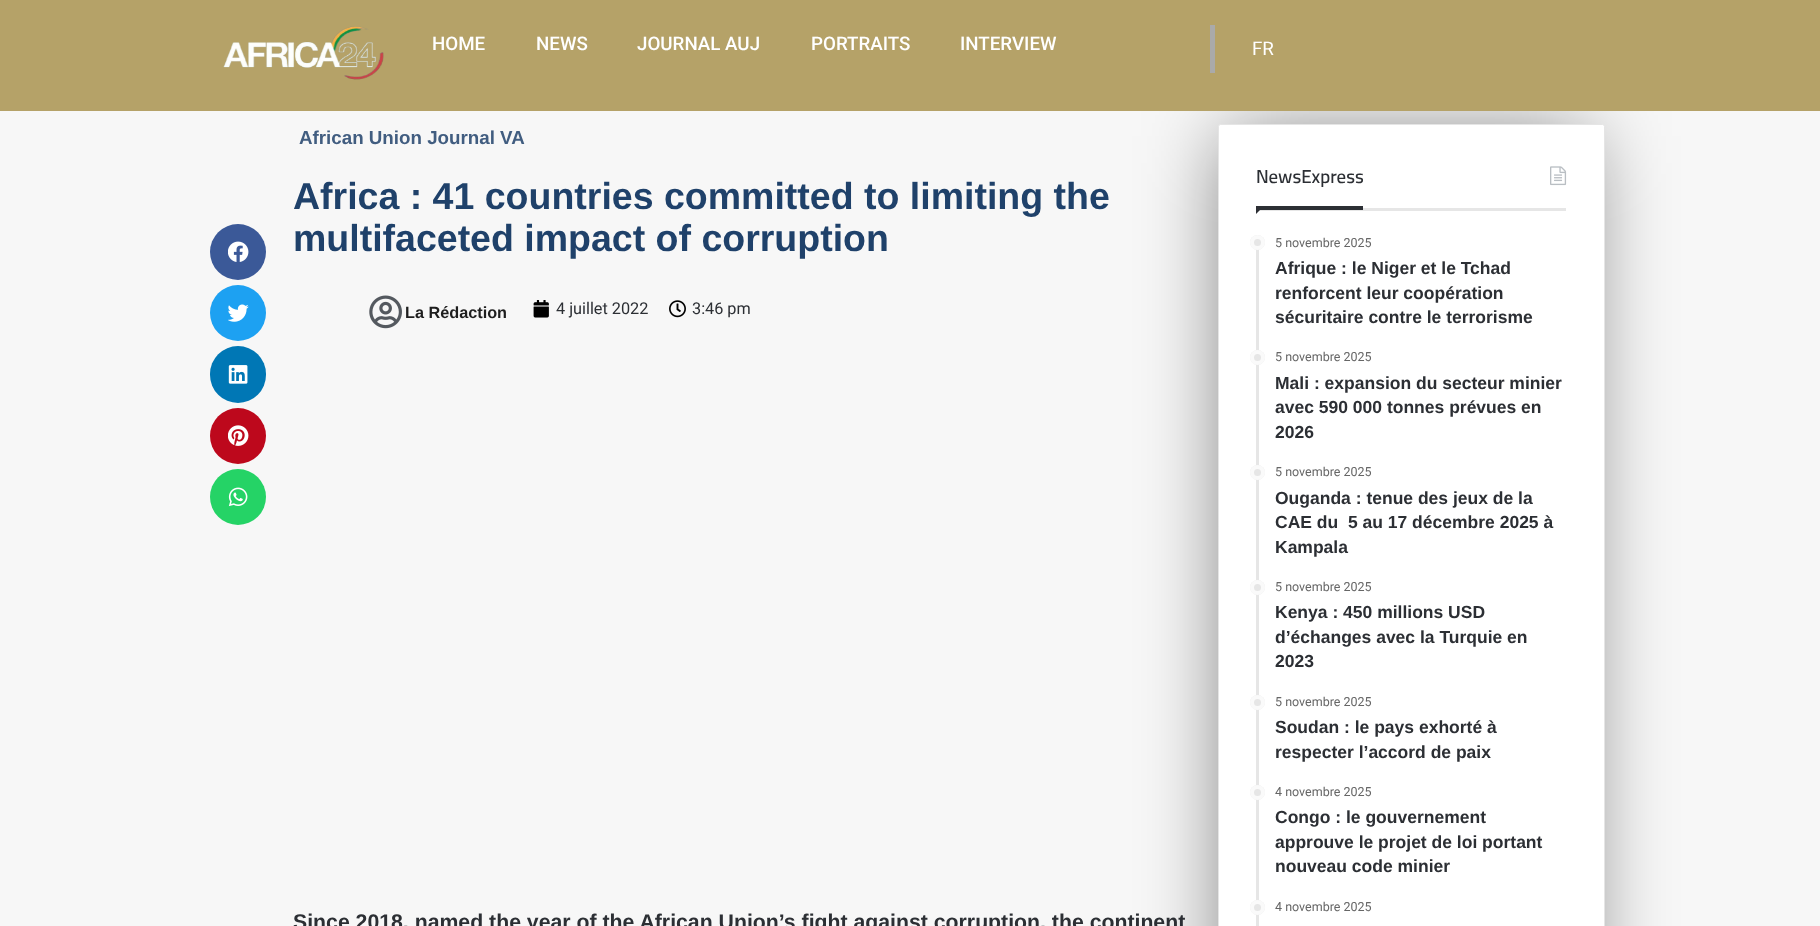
<!DOCTYPE html>
<meta charset="utf-8">
<style>body { margin: 0 } canvas { display: block }</style>
<canvas id="canvas" width="1820" height="926"></canvas>
<img id="img1" src="images/1.png" hidden>
<img id="img2" src="images/2.png" hidden>
<img id="img3" src="images/3.png" hidden>
<img id="img4" src="images/4.png" hidden>
<img id="img5" src="images/5.png" hidden>
<img id="img6" src="images/6.png" hidden>
<img id="img7" src="images/7.png" hidden>
<img id="img8" src="images/8.png" hidden>
<img id="img9" src="images/9.png" hidden>
<img id="img10" src="images/10.png" hidden>
<script>
window.onload = function () {
    const canvas = document.getElementById('canvas');
    const context = canvas.getContext('2d');
    context.miterLimit = 4;
    context.fontKerning = 'normal';

    context.fillStyle = 'rgb(247, 247, 247)';
    context.fillRect(0, 0, 1820, 926);
    context.fillStyle = 'rgba(0, 0, 0, 0.5)';
    context.filter = 'blur(41px)';
    context.beginPath();
    context.rect(1225, 136, 363, 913);
    context.fill();
    context.filter = 'none';
    context.fillStyle = 'rgb(181, 162, 104)';
    context.fillRect(0, 0, 1820, 111);
    context.drawImage(document.getElementById('img1'), 223, 26, 161, 54);
    context.fillStyle = 'rgb(170, 170, 170)';
    context.fillRect(1210, 25, 5, 48);
    context.fillStyle = 'rgb(59, 89, 152)';
    context.beginPath();
    context.arc(238, 252, 28, 0, 2 * Math.PI);
    context.fill();
    context.drawImage(document.getElementById('img2'), 228, 241, 21, 21);
    context.fillStyle = 'rgb(29, 161, 242)';
    context.beginPath();
    context.arc(238, 313, 28, 0, 2 * Math.PI);
    context.fill();
    context.drawImage(document.getElementById('img3'), 228, 304, 21, 18);
    context.fillStyle = 'rgb(0, 119, 181)';
    context.beginPath();
    context.roundRect(210, 346, 56, 57, 28);
    context.fill();
    context.drawImage(document.getElementById('img4'), 228, 365, 20, 19);
    context.fillStyle = 'rgb(189, 8, 28)';
    context.beginPath();
    context.arc(238, 436, 28, 0, 2 * Math.PI);
    context.fill();
    context.drawImage(document.getElementById('img5'), 228, 425, 21, 21);
    context.fillStyle = 'rgb(37, 211, 102)';
    context.beginPath();
    context.arc(238, 497, 28, 0, 2 * Math.PI);
    context.fill();
    context.drawImage(document.getElementById('img6'), 228, 487, 20, 20);
    context.drawImage(document.getElementById('img7'), 369, 295, 33, 34);
    context.drawImage(document.getElementById('img8'), 533, 300, 16, 18);
    context.drawImage(document.getElementById('img9'), 669, 300, 17, 18);
    context.fillStyle = 'rgb(255, 255, 255)';
    context.beginPath();
    context.roundRect(1218.5, 124.5, 386, 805, 2);
    context.fill();
    context.strokeStyle = 'rgb(229, 229, 229)';
    context.stroke();
    context.fillStyle = 'rgb(230, 230, 230)';
    context.fillRect(1256, 208, 310, 3);
    context.drawImage(document.getElementById('img10'), 1550, 166, 17, 20);
    context.fillStyle = 'rgb(44, 47, 52)';
    context.beginPath();
    context.moveTo(1256, 207.5);
    context.lineTo(1262.5, 207.5);
    context.lineTo(1256, 214);
    context.closePath();
    context.fill();
    context.fillRect(1256, 206, 107, 4);
    context.fillStyle = 'rgb(230, 230, 230)';
    context.fillRect(1256, 235, 3, 691);
    context.beginPath();
    context.arc(1257.5, 242.5, 7.5, 0, 2 * Math.PI);
    context.fill();
    context.beginPath();
    context.arc(1257.5, 242.5, 5.5, 0, 2 * Math.PI);
    context.strokeStyle = 'rgba(255, 255, 255, 0.8)';
    context.lineWidth = 4;
    context.stroke();
    context.beginPath();
    context.arc(1257.5, 357.5, 7.5, 0, 2 * Math.PI);
    context.fill();
    context.beginPath();
    context.arc(1257.5, 357.5, 5.5, 0, 2 * Math.PI);
    context.stroke();
    context.beginPath();
    context.arc(1257.5, 472.5, 7.5, 0, 2 * Math.PI);
    context.fill();
    context.beginPath();
    context.arc(1257.5, 472.5, 5.5, 0, 2 * Math.PI);
    context.stroke();
    context.beginPath();
    context.arc(1257.5, 587.5, 7.5, 0, 2 * Math.PI);
    context.fill();
    context.beginPath();
    context.arc(1257.5, 587.5, 5.5, 0, 2 * Math.PI);
    context.stroke();
    context.beginPath();
    context.arc(1257.5, 702.5, 7.5, 0, 2 * Math.PI);
    context.fill();
    context.beginPath();
    context.arc(1257.5, 702.5, 5.5, 0, 2 * Math.PI);
    context.stroke();
    context.beginPath();
    context.arc(1257.5, 792.5, 7.5, 0, 2 * Math.PI);
    context.fill();
    context.beginPath();
    context.arc(1257.5, 792.5, 5.5, 0, 2 * Math.PI);
    context.stroke();
    context.beginPath();
    context.arc(1257.5, 907.5, 7.5, 0, 2 * Math.PI);
    context.fill();
    context.beginPath();
    context.arc(1257.5, 907.5, 5.5, 0, 2 * Math.PI);
    context.stroke();
    context.font = '500 18.75px Roboto';
    context.fillStyle = 'rgb(255, 255, 255)';
    context.fillText('HOME', 432, 50);
    context.fillText('NEWS', 536, 50);
    context.fillText('JOURNAL AUJ', 637, 50);
    context.fillText('PORTRAITS', 811, 50);
    context.fillText('INTERVIEW', 960, 50);
    context.font = '18.75px Roboto';
    context.fillText('FR', 1252, 55);
    context.font = 'bold 18.75px Liberation Sans';
    context.fillStyle = 'rgb(65, 93, 128)';
    context.fillText('African Union Journal VA', 299, 144);
    context.font = 'bold 37.5px Liberation Sans';
    context.fillStyle = 'rgb(31, 65, 106)';
    context.fillText('Africa : 41 countries committed to limiting the', 293, 209);
    context.fillText('multifaceted impact of corruption', 293, 251);
    context.font = 'bold 16.25px Liberation Sans';
    context.fillStyle = 'rgb(30, 30, 30)';
    context.fillText('La Rédaction', 405, 318);
    context.font = '16.25px Roboto';
    context.fillStyle = 'rgb(44, 47, 52)';
    context.fillText('4 juillet 2022', 556, 314);
    context.fillText('3:46 pm', 692, 314);
    context.font = 'bold 21.25px Liberation Sans';
    context.fillText('Since 2018, named the year of the African Union’s fight against corruption, the continent', 293, 929);
    context.font = '600 18.75px Cairo';
    context.fillText('NewsExpress', 1256, 183);
    context.font = '12.5px Roboto';
    context.fillStyle = 'rgb(102, 102, 102)';
    context.fillText('5 novembre 2025', 1275, 247);
    context.font = 'bold 17.5px Liberation Sans';
    context.fillStyle = 'rgb(44, 47, 52)';
    context.fillText('Afrique : le Niger et le Tchad', 1275, 274);
    context.fillText('renforcent leur coopération', 1275, 299);
    context.fillText('sécuritaire contre le terrorisme', 1275, 323);
    context.font = '12.5px Roboto';
    context.fillStyle = 'rgb(102, 102, 102)';
    context.fillText('5 novembre 2025', 1275, 361);
    context.font = 'bold 17.5px Liberation Sans';
    context.fillStyle = 'rgb(44, 47, 52)';
    context.fillText('Mali : expansion du secteur minier', 1275, 389);
    context.fillText('avec 590 000 tonnes prévues en', 1275, 413);
    context.fillText('2026', 1275, 438);
    context.font = '12.5px Roboto';
    context.fillStyle = 'rgb(102, 102, 102)';
    context.fillText('5 novembre 2025', 1275, 476);
    context.font = 'bold 17.5px Liberation Sans';
    context.fillStyle = 'rgb(44, 47, 52)';
    context.fillText('Ouganda : tenue des jeux de la', 1275, 504);
    context.fillText('CAE du  5 au 17 décembre 2025 à', 1275, 528);
    context.fillText('Kampala', 1275, 553);
    context.font = '12.5px Roboto';
    context.fillStyle = 'rgb(102, 102, 102)';
    context.fillText('5 novembre 2025', 1275, 591);
    context.font = 'bold 17.5px Liberation Sans';
    context.fillStyle = 'rgb(44, 47, 52)';
    context.fillText('Kenya : 450 millions USD', 1275, 618);
    context.fillText('d’échanges avec la Turquie en', 1275, 643);
    context.fillText('2023', 1275, 667);
    context.font = '12.5px Roboto';
    context.fillStyle = 'rgb(102, 102, 102)';
    context.fillText('5 novembre 2025', 1275, 706);
    context.font = 'bold 17.5px Liberation Sans';
    context.fillStyle = 'rgb(44, 47, 52)';
    context.fillText('Soudan : le pays exhorté à', 1275, 733);
    context.fillText('respecter l’accord de paix', 1275, 758);
    context.font = '12.5px Roboto';
    context.fillStyle = 'rgb(102, 102, 102)';
    context.fillText('4 novembre 2025', 1275, 796);
    context.font = 'bold 17.5px Liberation Sans';
    context.fillStyle = 'rgb(44, 47, 52)';
    context.fillText('Congo : le gouvernement', 1275, 823);
    context.fillText('approuve le projet de loi portant', 1275, 848);
    context.fillText('nouveau code minier', 1275, 872);
    context.font = '12.5px Roboto';
    context.fillStyle = 'rgb(102, 102, 102)';
    context.fillText('4 novembre 2025', 1275, 911);
};
</script>
